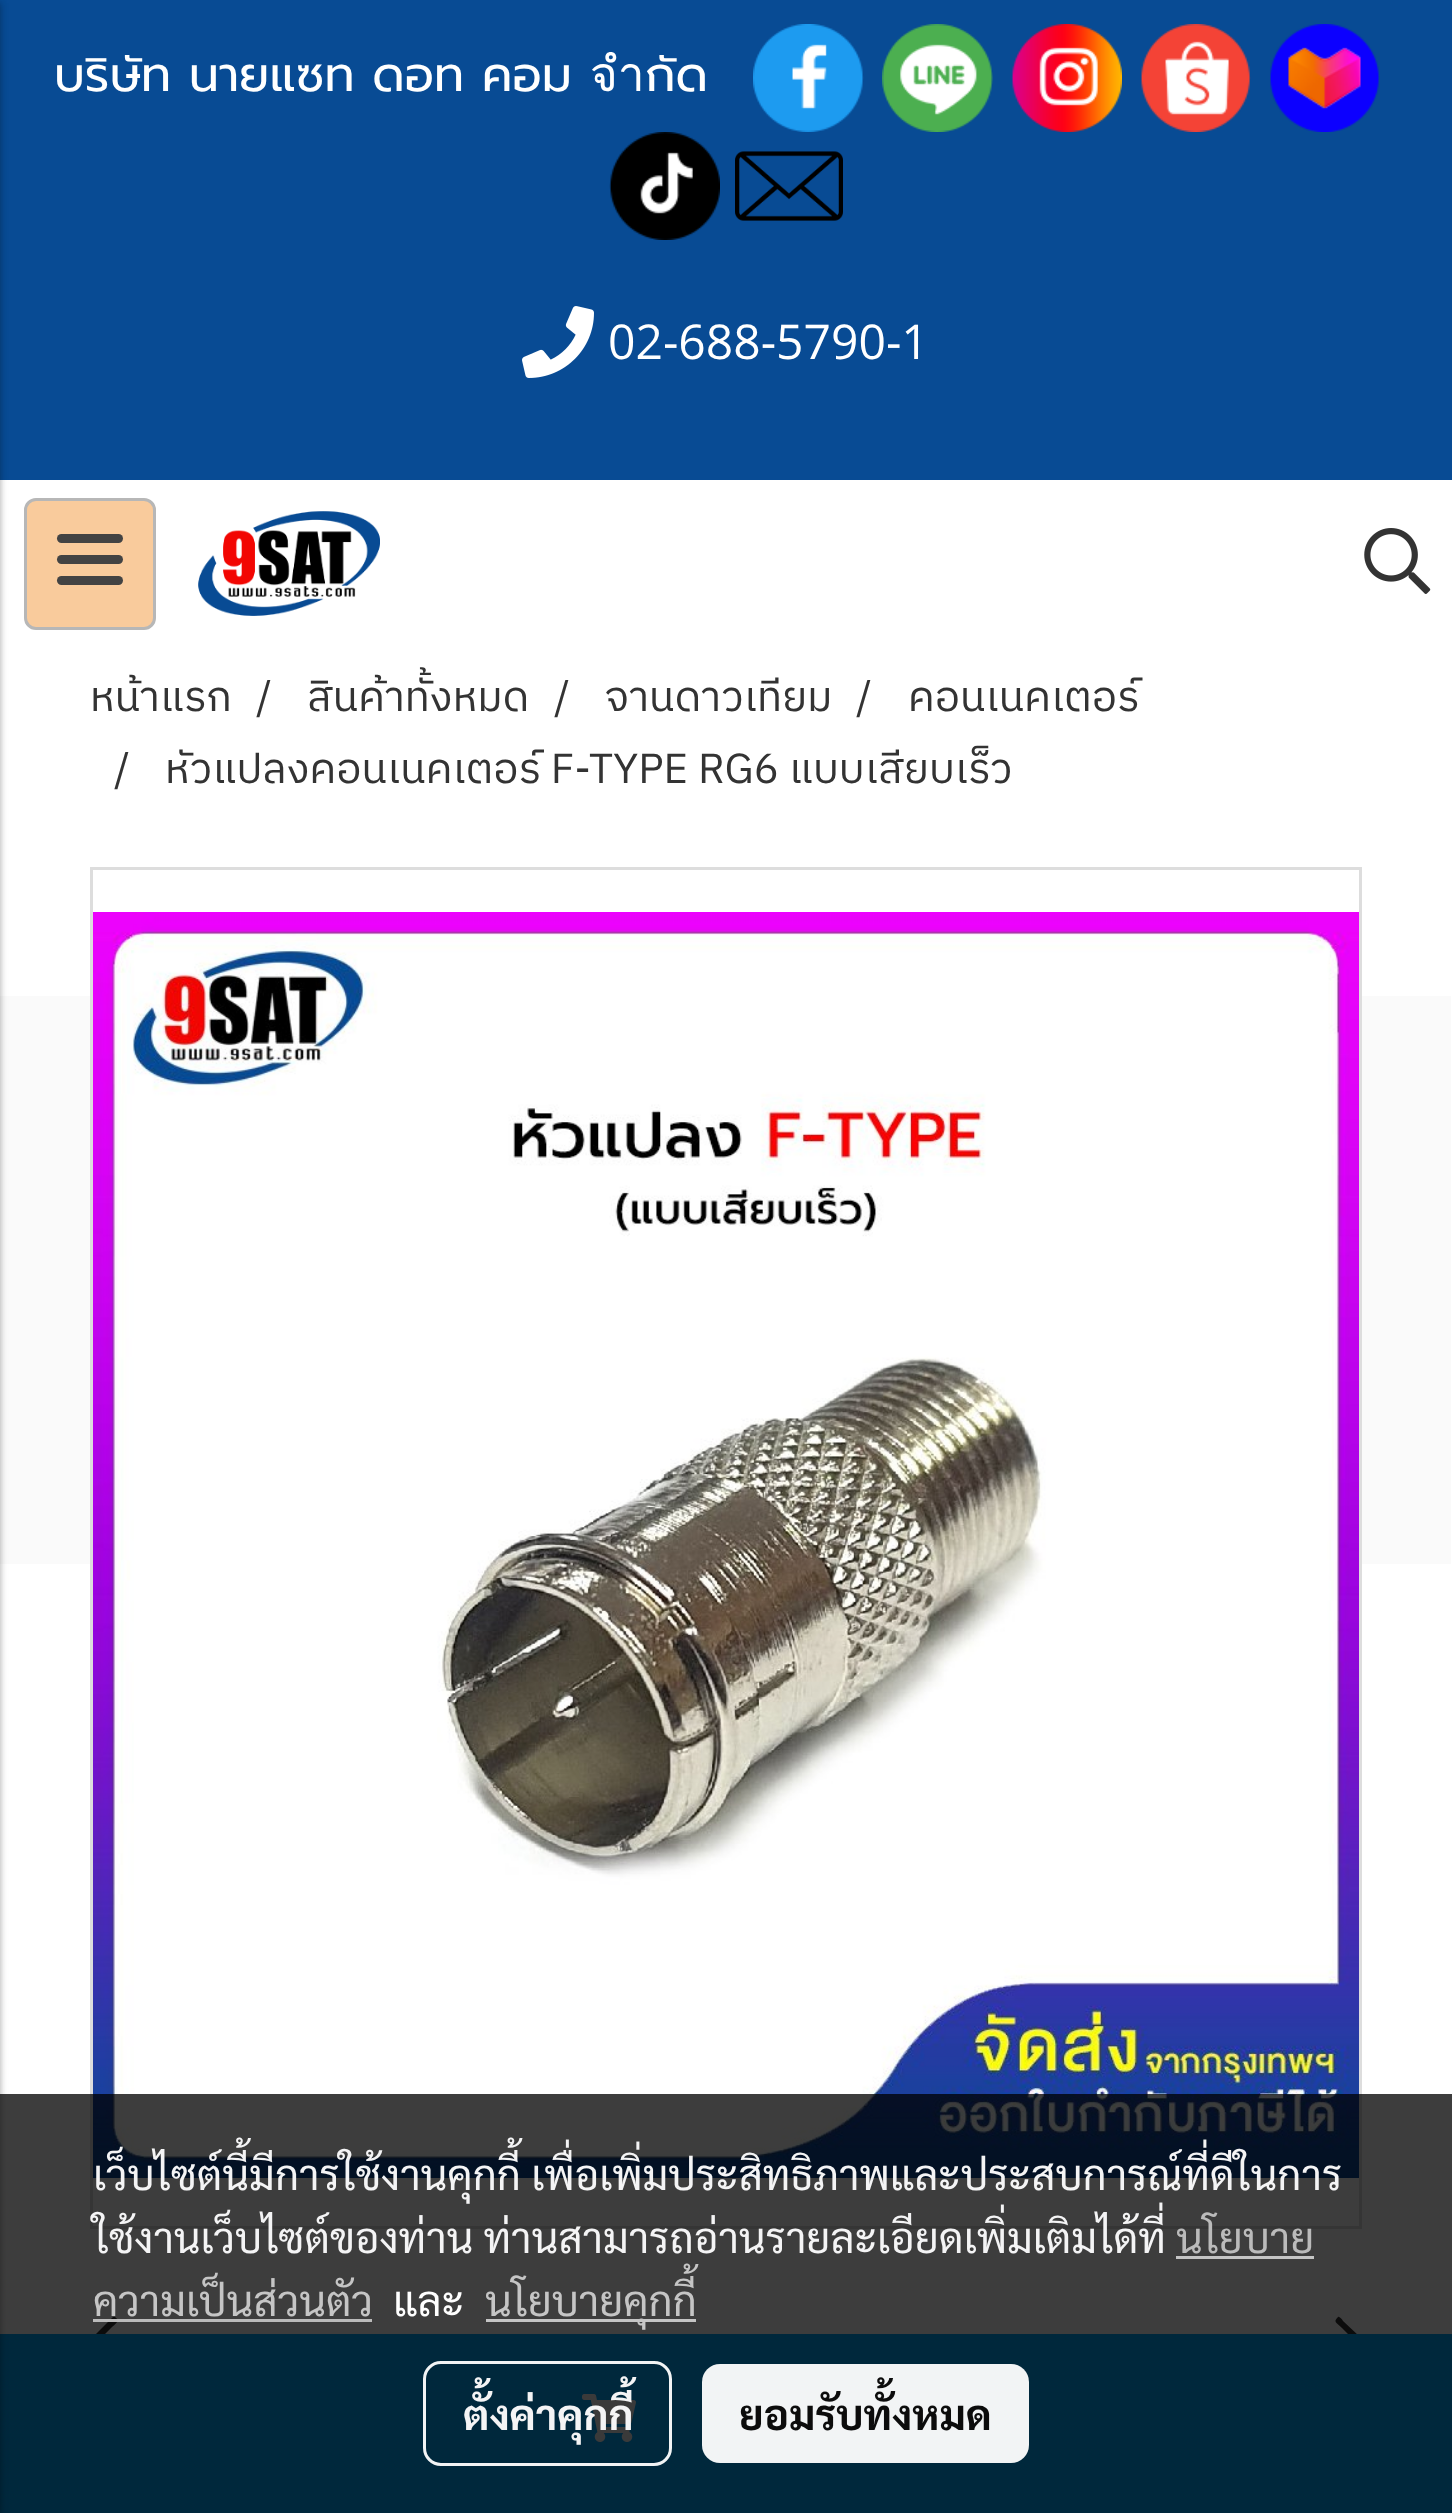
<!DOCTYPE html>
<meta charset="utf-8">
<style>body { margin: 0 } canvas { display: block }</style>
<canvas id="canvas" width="1452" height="2513"></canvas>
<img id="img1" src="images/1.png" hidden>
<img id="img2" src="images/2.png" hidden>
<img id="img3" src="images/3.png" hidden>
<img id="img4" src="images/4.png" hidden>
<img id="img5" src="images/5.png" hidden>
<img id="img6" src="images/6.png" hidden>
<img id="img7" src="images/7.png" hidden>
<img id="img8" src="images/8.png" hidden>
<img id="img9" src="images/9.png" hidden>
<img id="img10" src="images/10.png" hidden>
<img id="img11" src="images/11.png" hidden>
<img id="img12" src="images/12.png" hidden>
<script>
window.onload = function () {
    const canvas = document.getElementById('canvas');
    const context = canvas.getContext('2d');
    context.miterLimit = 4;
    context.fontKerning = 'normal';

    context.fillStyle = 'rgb(255, 255, 255)';
    context.fillRect(0, 0, 1452, 2513);
    context.fillStyle = 'rgb(250, 250, 250)';
    context.fillRect(0, 996, 1451, 568);
    context.fillStyle = 'rgb(8, 75, 148)';
    context.fillRect(0, 0, 1452, 480);
    context.fillStyle = 'rgb(51, 51, 51)';
    context.beginPath();
    context.moveTo(115, 2365);
    context.bezierCurveTo(120, 2360, 117, 2360, 111, 2354);
    context.lineTo(98, 2341);
    context.lineTo(111, 2328);
    context.bezierCurveTo(115, 2324, 121, 2321, 115, 2317);
    context.lineTo(113, 2317);
    context.lineTo(94, 2336);
    context.bezierCurveTo(89, 2342, 89, 2340, 94, 2346);
    context.lineTo(110, 2361);
    context.bezierCurveTo(111, 2363, 114, 2366, 115, 2365);
    context.closePath();
    context.fill();
    context.beginPath();
    context.moveTo(1338, 2317);
    context.bezierCurveTo(1333, 2322, 1336, 2322, 1342, 2328);
    context.lineTo(1355, 2341);
    context.lineTo(1342, 2354);
    context.bezierCurveTo(1338, 2358, 1332, 2361, 1338, 2365);
    context.lineTo(1340, 2365);
    context.lineTo(1359, 2346);
    context.bezierCurveTo(1364, 2340, 1364, 2342, 1359, 2336);
    context.lineTo(1343, 2321);
    context.bezierCurveTo(1342, 2319, 1339, 2316, 1338, 2317);
    context.closePath();
    context.fill();
    context.fillStyle = 'rgb(0, 166, 251)';
    context.fillRect(0, 2334, 1452, 179);
    context.fillStyle = 'rgba(0, 0, 0, 0.24)';
    context.filter = 'blur(3px)';
    context.beginPath();
    context.rect(-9, 3, 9, 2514);
    context.fill();
    context.filter = 'none';
    context.fillStyle = 'rgba(0, 0, 0, 0.12)';
    context.filter = 'blur(4.5px)';
    context.beginPath();
    context.rect(-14, 3, 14, 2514);
    context.fill();
    context.filter = 'none';
    context.fillStyle = 'rgb(249, 203, 156)';
    context.beginPath();
    context.roundRect(25.5, 499.5, 129, 129, 10.5);
    context.fill();
    context.strokeStyle = 'rgb(183, 183, 183)';
    context.lineWidth = 3;
    context.stroke();
    context.fillStyle = 'rgb(67, 67, 67)';
    context.beginPath();
    context.roundRect(57, 555, 66, 9, 4.5);
    context.fill();
    context.beginPath();
    context.roundRect(57, 534, 66, 9, 4.5);
    context.fill();
    context.beginPath();
    context.roundRect(57, 576, 66, 9, 4.5);
    context.fill();
    context.drawImage(document.getElementById('img1'), 198, 511, 182, 105);
    context.drawImage(document.getElementById('img2'), 1364, 528, 67, 66);
    context.drawImage(document.getElementById('img3'), 753, 24, 111, 108);
    context.drawImage(document.getElementById('img4'), 882, 24, 111, 108);
    context.drawImage(document.getElementById('img5'), 1011, 24, 111, 108);
    context.drawImage(document.getElementById('img6'), 1141, 24, 110, 108);
    context.drawImage(document.getElementById('img7'), 1270, 24, 110, 108);
    context.drawImage(document.getElementById('img8'), 609, 132, 111, 108);
    context.drawImage(document.getElementById('img9'), 735, 151, 108, 70);
    context.drawImage(document.getElementById('img10'), 522, 306, 72, 72);
    context.fillStyle = 'rgb(255, 255, 255)';
    context.fillRect(93, 996, 1266, 568);
    context.strokeStyle = 'rgb(221, 221, 221)';
    context.strokeRect(91.5, 868.5, 1269, 1359);
    context.drawImage(document.getElementById('img11'), 93, 912, 1266, 1266);
    context.drawImage(document.getElementById('img12'), 582, 2394, 54, 48);
    context.fillStyle = 'rgba(0, 0, 0, 0.76)';
    context.fillRect(0, 2094, 1452, 419);
    context.fillStyle = 'rgb(197, 197, 197)';
    context.fillRect(1176, 2256, 138, 3);
    context.fillStyle = 'rgba(194, 194, 194, 0.95)';
    context.fillRect(93, 2319, 279, 3);
    context.fillStyle = 'rgb(197, 197, 197)';
    context.fillRect(486, 2319, 210, 3);
    context.beginPath();
    context.roundRect(424.5, 2362.5, 246, 102, 16.5);
    context.strokeStyle = 'rgba(255, 255, 255, 0.95)';
    context.stroke();
    context.fillStyle = 'rgba(255, 255, 255, 0.95)';
    context.beginPath();
    context.roundRect(702, 2364, 327, 99, 18);
    context.fill();
    context.font = '48px Prompt';
    context.fillStyle = 'rgb(255, 255, 255)';
    context.fillText('บริษัท นายแซท ดอท คอม จำกัด', 54, 91);
    context.font = '48px Open Sans';
    context.fillText('02-688-5790-1', 608, 359);
    context.font = '42px IBM Plex Sans Thai';
    context.fillStyle = 'rgb(51, 51, 51)';
    context.fillText('หน้าแรก', 90, 711);
    context.fillText('/', 256, 711);
    context.fillText('สินค้าทั้งหมด', 307, 711);
    context.fillText('/', 554, 711);
    context.fillText('จานดาวเทียม', 605, 711);
    context.fillText('/', 856, 711);
    context.fillText('คอนเนคเตอร์', 908, 711);
    context.fillText('/', 114, 783);
    context.fillText('หัวแปลงคอนเนคเตอร์ F-TYPE RG6 แบบเสียบเร็ว', 165, 783);
    context.font = '42px Sarabun';
    context.fillStyle = 'rgb(244, 244, 245)';
    context.fillText('เว็บไซต์นี้มีการใช้งานคุกกี้ เพื่อเพิ่มประสิทธิภาพและประสบการณ์ที่ดีในการ', 93, 2190);
    context.fillText('ใช้งานเว็บไซต์ของท่าน ท่านสามารถอ่านรายละเอียดเพิ่มเติมได้ที่', 93, 2253);
    context.fillStyle = 'rgb(187, 187, 187)';
    context.fillText('นโยบาย', 1176, 2253);
    context.fillStyle = 'rgb(197, 197, 197)';
    context.fillText('ความเป็นส่วนตัว', 93, 2316);
    context.fillStyle = 'rgb(255, 255, 255)';
    context.fillText('และ', 393, 2316);
    context.fillStyle = 'rgb(197, 197, 197)';
    context.fillText('นโยบายคุกกี้', 485, 2316);
    context.font = 'bold 42px Sarabun';
    context.fillStyle = 'rgb(244, 244, 245)';
    context.fillText('ตั้งค่าคุกกี้', 463, 2430);
    context.fillStyle = 'rgb(12, 12, 12)';
    context.fillText('ยอมรับทั้งหมด', 739, 2430);
};
</script>
